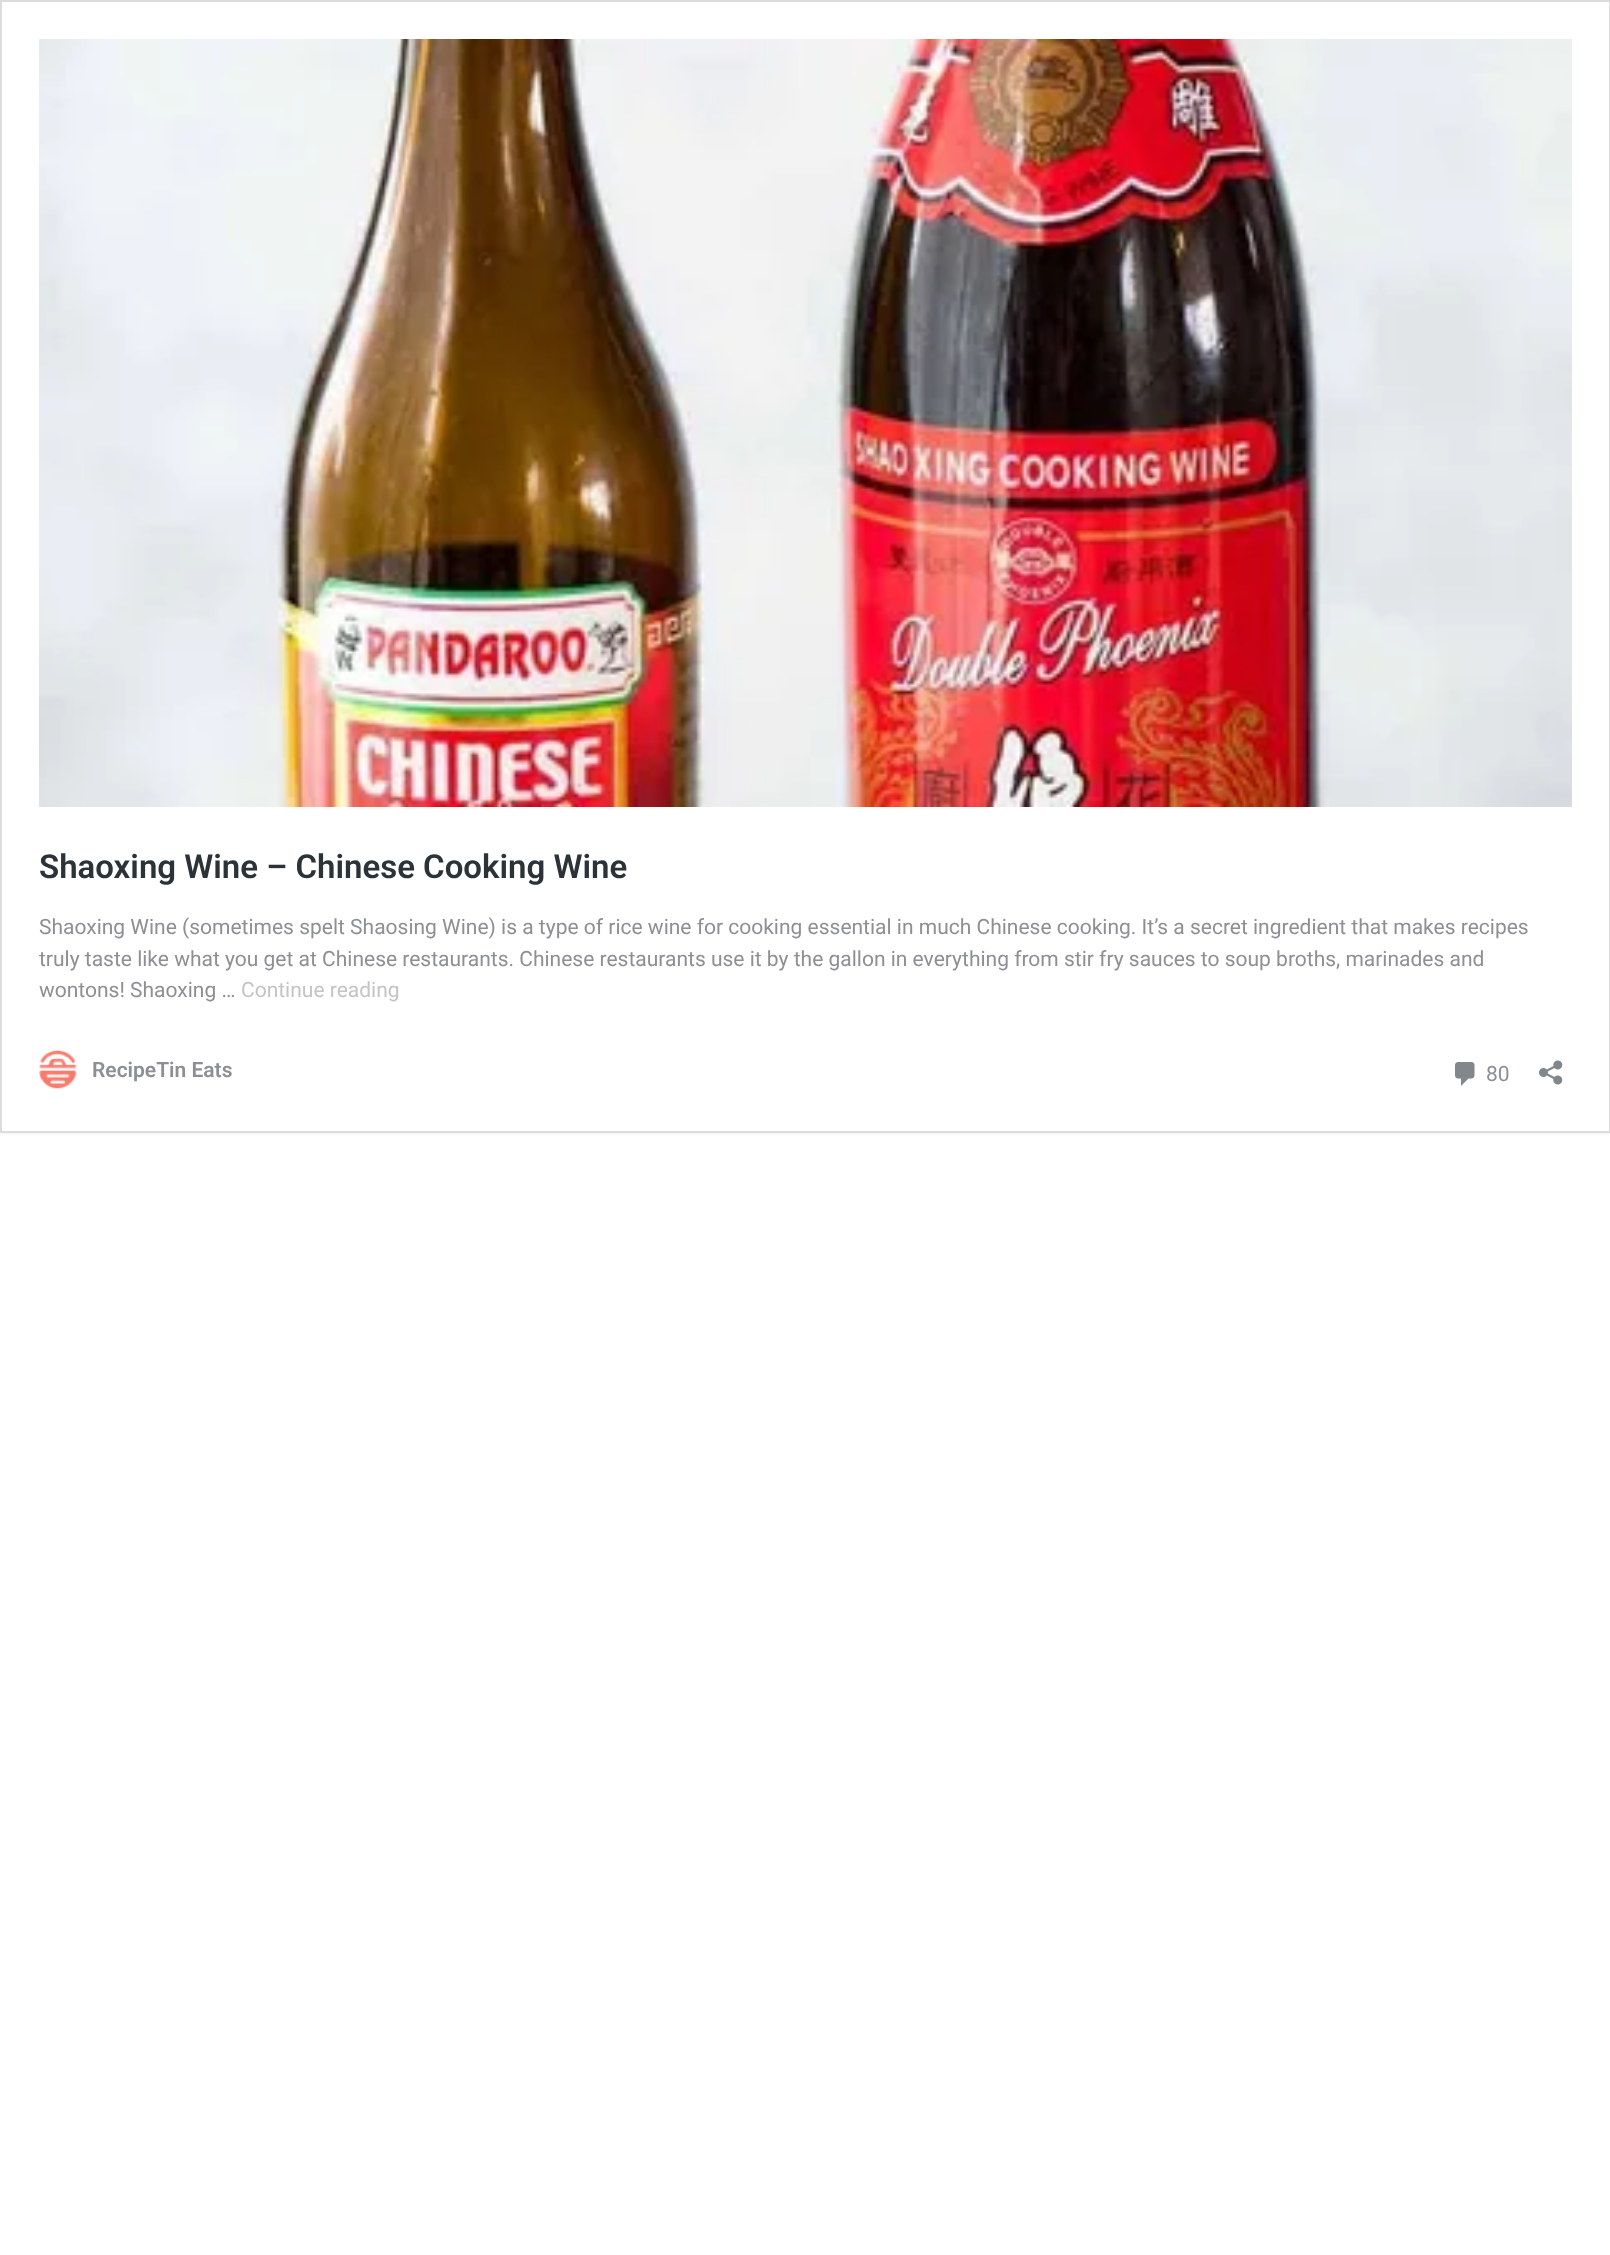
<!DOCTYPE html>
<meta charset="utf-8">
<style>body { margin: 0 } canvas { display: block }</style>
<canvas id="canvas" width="1610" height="2255"></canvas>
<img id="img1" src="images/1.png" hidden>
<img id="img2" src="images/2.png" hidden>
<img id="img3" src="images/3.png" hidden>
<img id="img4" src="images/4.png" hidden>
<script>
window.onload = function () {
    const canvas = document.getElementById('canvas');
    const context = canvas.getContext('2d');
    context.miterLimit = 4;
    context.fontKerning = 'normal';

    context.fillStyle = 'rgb(255, 255, 255)';
    context.fillRect(0, 0, 1610, 2255);
    context.fillStyle = 'rgba(0, 0, 0, 0.05)';
    context.filter = 'blur(1px)';
    context.beginPath();
    context.rect(0, 2, 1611, 1132);
    context.fill();
    context.filter = 'none';
    context.fillStyle = 'rgb(255, 255, 255)';
    context.beginPath();
    context.rect(1, 1, 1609, 1131);
    context.fill();
    context.strokeStyle = 'rgb(220, 220, 222)';
    context.lineWidth = 2;
    context.stroke();
    context.drawImage(document.getElementById('img1'), 39, 39, 1533, 768);
    context.drawImage(document.getElementById('img2'), 39, 1050, 38, 39);
    context.drawImage(document.getElementById('img3'), 1455, 1062, 20, 24);
    context.drawImage(document.getElementById('img4'), 1539, 1060, 24, 25);
    context.font = '600 33px Roboto';
    context.fillStyle = 'rgb(44, 51, 56)';
    context.fillText('Shaoxing Wine – Chinese Cooking Wine', 39, 878);
    context.font = '21px Roboto';
    context.fillStyle = 'rgb(140, 143, 148)';
    context.fillText('Shaoxing Wine (sometimes spelt Shaosing Wine) is a type of rice wine for cooking essential in much Chinese cooking. It’s a secret ingredient that makes recipes', 39, 934);
    context.fillText('truly taste like what you get at Chinese restaurants. Chinese restaurants use it by the gallon in everything from stir fry sauces to soup broths, marinades and', 39, 966);
    context.fillText('wontons! Shaoxing …', 39, 997);
    context.fillStyle = 'rgb(195, 196, 199)';
    context.fillText('Continue reading', 241, 997);
    context.font = '600 21px Roboto';
    context.fillStyle = 'rgb(140, 143, 148)';
    context.fillText('RecipeTin Eats', 92, 1077);
    context.font = '21px Roboto';
    context.fillText('80', 1486, 1081);
};
</script>
